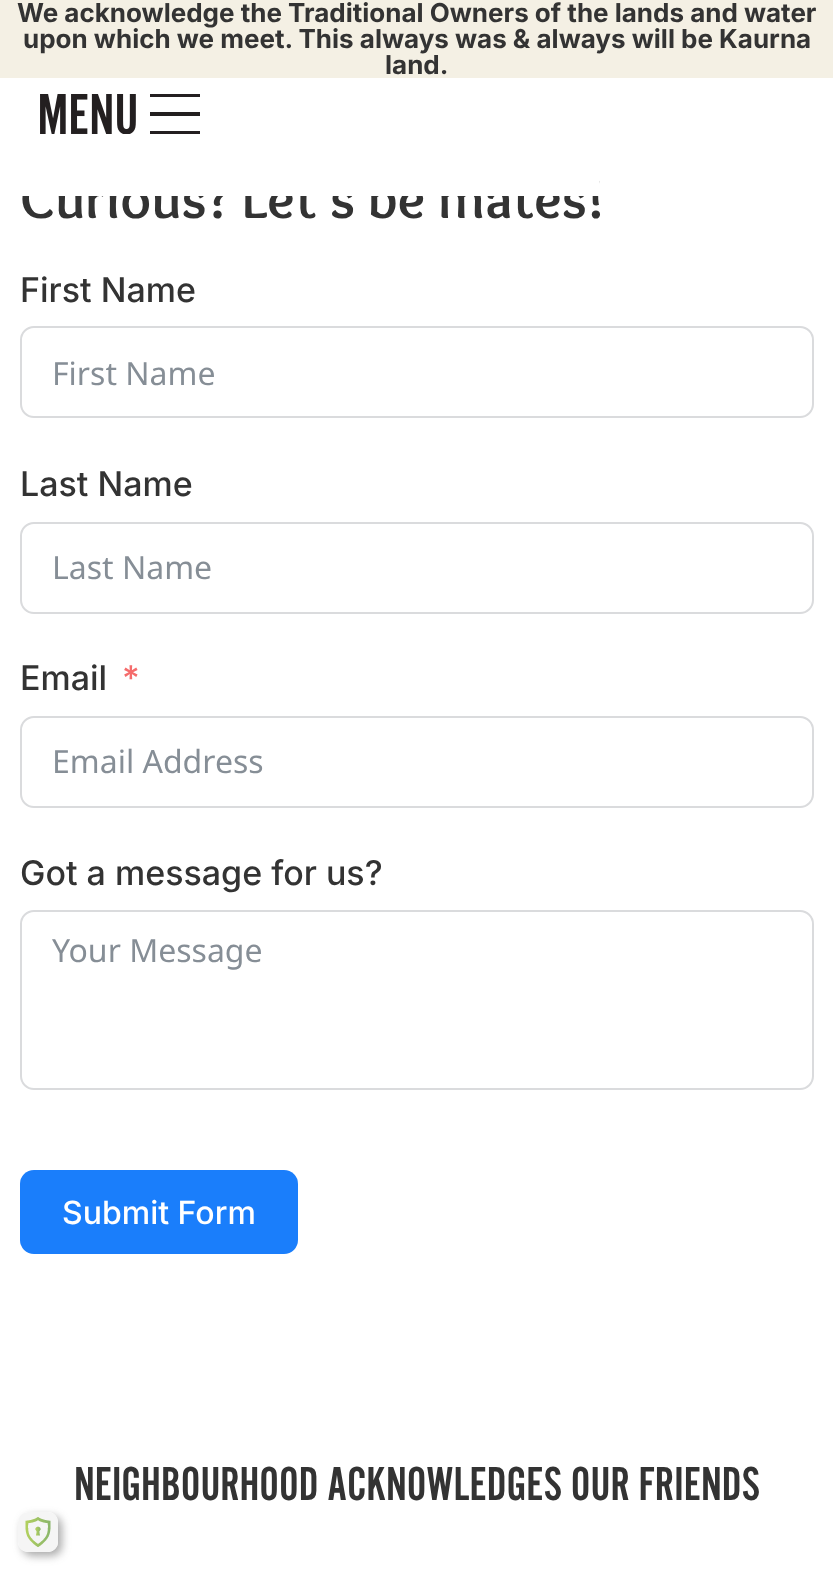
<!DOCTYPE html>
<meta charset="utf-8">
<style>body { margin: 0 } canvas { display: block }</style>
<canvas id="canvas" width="833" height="1569"></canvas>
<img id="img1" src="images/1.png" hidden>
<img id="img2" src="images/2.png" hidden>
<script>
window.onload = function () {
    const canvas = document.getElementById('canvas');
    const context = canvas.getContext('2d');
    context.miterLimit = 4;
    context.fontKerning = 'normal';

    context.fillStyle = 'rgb(255, 255, 255)';
    context.fillRect(0, 0, 833, 1569);
    context.fillStyle = 'rgb(244, 240, 228)';
    context.fillRect(0, 0, 833, 78);
    context.drawImage(document.getElementById('img1'), 40, 94, 160, 40);
    context.beginPath();
    context.roundRect(21, 327, 792, 90, 13);
    context.strokeStyle = 'rgb(218, 219, 221)';
    context.lineWidth = 2;
    context.stroke();
    context.beginPath();
    context.roundRect(21, 523, 792, 90, 13);
    context.stroke();
    context.beginPath();
    context.roundRect(21, 717, 792, 90, 13);
    context.stroke();
    context.beginPath();
    context.roundRect(21, 911, 792, 178, 13);
    context.stroke();
    context.fillStyle = 'rgb(26, 126, 251)';
    context.beginPath();
    context.roundRect(20, 1170, 278, 84, 14);
    context.fill();
    context.save();
    context.beginPath();
    context.moveTo(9, 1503);
    context.lineTo(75, 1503);
    context.lineTo(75, 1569);
    context.lineTo(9, 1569);
    context.closePath();
    context.moveTo(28, 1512);
    context.lineTo(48, 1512);
    context.bezierCurveTo(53.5, 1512, 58, 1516.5, 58, 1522);
    context.lineTo(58, 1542);
    context.bezierCurveTo(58, 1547.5, 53.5, 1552, 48, 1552);
    context.lineTo(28, 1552);
    context.bezierCurveTo(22.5, 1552, 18, 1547.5, 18, 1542);
    context.lineTo(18, 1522);
    context.bezierCurveTo(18, 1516.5, 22.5, 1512, 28, 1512);
    context.closePath();
    context.clip('evenodd');
    context.fillStyle = 'rgba(77, 77, 77, 0.47)';
    context.filter = 'blur(4px)';
    context.beginPath();
    context.roundRect(22, 1516, 40, 40, 10);
    context.fill();
    context.filter = 'none';
    context.restore();
    context.fillStyle = 'rgba(245, 245, 245, 0.99)';
    context.beginPath();
    context.roundRect(18, 1512, 40, 40, 10);
    context.fill();
    context.drawImage(document.getElementById('img2'), 25, 1517, 26, 30);
    context.font = 'bold 26px Inter';
    context.fillStyle = 'rgb(51, 51, 51)';
    context.fillText('We acknowledge the Traditional Owners of the lands and water', 17, 22);
    context.fillText('upon which we meet. This always was & always will be Kaurna', 23, 48);
    context.fillText('land.', 385, 74);
    context.font = 'bold 57.4px Overlock';
    context.fillText('Curious? Let\'s be mates!', 20, 218);
    context.fillStyle = 'rgb(255, 255, 255)';
    context.fillRect(22, 175, 577, 21);
    context.font = '500 34px Inter';
    context.fillStyle = 'rgb(51, 51, 51)';
    context.fillText('First Name', 20, 302);
    context.font = '32px Noto Sans';
    context.fillStyle = 'rgb(134, 142, 150)';
    context.fillText('First Name', 52, 385);
    context.font = '500 34px Inter';
    context.fillStyle = 'rgb(51, 51, 51)';
    context.fillText('Last Name', 20, 496);
    context.font = '32px Noto Sans';
    context.fillStyle = 'rgb(134, 142, 150)';
    context.fillText('Last Name', 52, 579);
    context.font = '500 34px Inter';
    context.fillStyle = 'rgb(51, 51, 51)';
    context.fillText('Email', 20, 690);
    context.fillStyle = 'rgb(245, 108, 108)';
    context.fillText('*', 122, 690);
    context.font = '32px Noto Sans';
    context.fillStyle = 'rgb(134, 142, 150)';
    context.fillText('Email Address', 52, 773);
    context.font = '500 34px Inter';
    context.fillStyle = 'rgb(51, 51, 51)';
    context.fillText('Got a message for us?', 20, 885);
    context.font = '32px Noto Sans';
    context.fillStyle = 'rgb(134, 142, 150)';
    context.fillText('Your Message', 52, 962);
    context.font = '500 32px Inter';
    context.fillStyle = 'rgb(255, 255, 255)';
    context.fillText('Submit Form', 62, 1224);
    context.font = '49.5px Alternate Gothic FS';
    context.fillStyle = 'rgb(51, 51, 51)';
    context.fillText('NEIGHBOURHOOD ACKNOWLEDGES OUR FRIENDS', 74, 1500);
};
</script>
